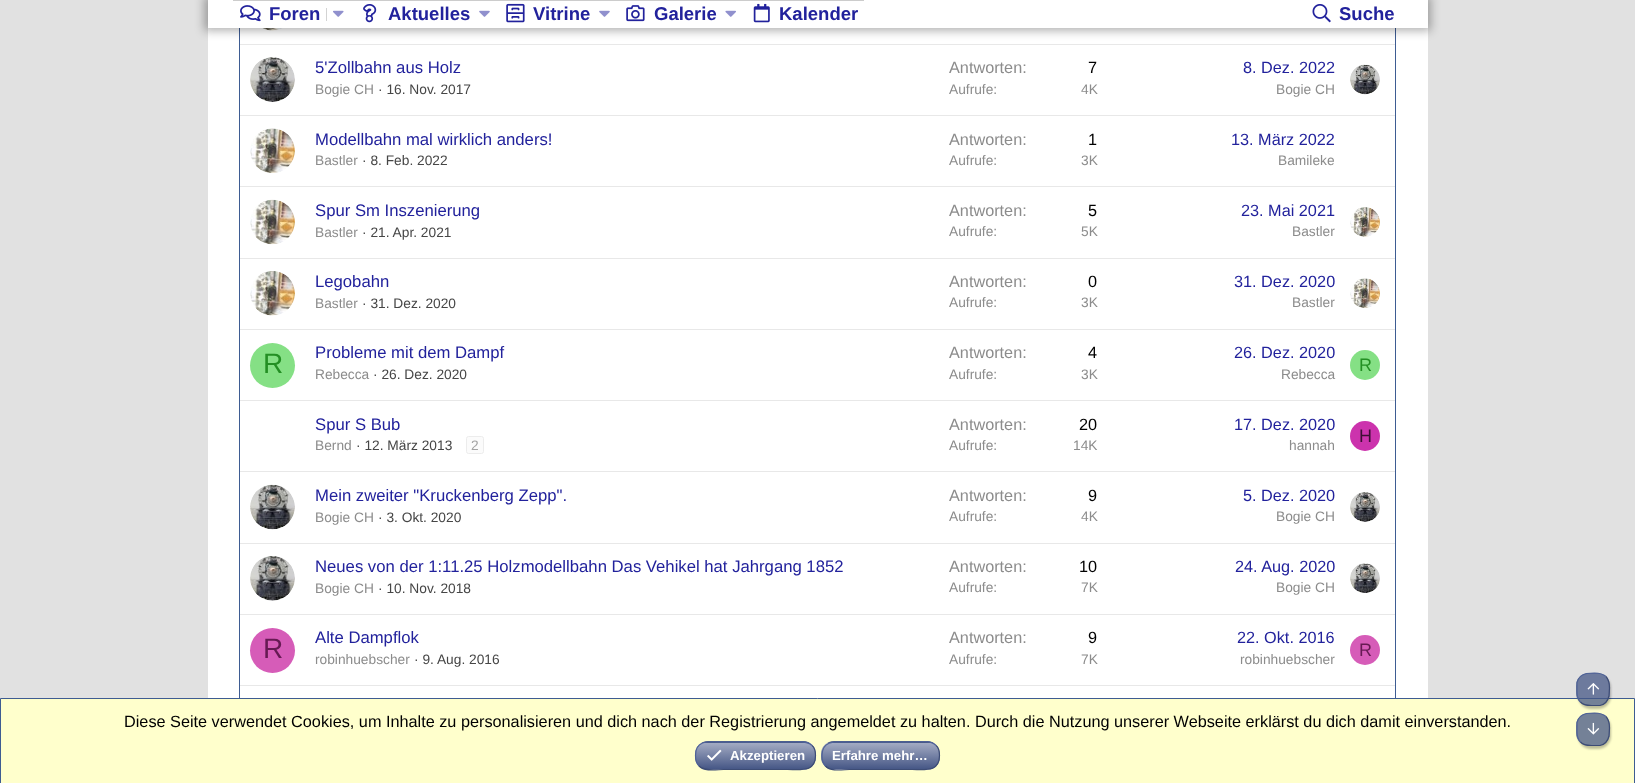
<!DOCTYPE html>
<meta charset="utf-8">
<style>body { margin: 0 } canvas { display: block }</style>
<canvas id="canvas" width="1635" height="783"></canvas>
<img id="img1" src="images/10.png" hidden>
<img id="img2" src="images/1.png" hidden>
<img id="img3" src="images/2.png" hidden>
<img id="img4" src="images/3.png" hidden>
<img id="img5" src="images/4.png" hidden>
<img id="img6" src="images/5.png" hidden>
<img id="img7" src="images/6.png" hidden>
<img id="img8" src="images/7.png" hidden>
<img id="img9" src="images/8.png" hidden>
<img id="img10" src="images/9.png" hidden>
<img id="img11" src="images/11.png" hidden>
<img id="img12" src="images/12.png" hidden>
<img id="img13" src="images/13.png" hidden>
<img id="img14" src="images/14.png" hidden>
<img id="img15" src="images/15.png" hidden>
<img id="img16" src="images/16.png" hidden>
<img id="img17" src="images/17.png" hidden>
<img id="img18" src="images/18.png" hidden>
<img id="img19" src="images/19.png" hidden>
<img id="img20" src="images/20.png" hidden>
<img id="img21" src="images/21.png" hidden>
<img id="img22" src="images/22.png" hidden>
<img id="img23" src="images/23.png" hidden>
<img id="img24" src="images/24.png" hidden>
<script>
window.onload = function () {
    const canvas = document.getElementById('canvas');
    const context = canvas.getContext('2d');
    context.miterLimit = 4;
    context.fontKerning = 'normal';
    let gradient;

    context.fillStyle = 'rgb(225, 225, 225)';
    context.fillRect(0, 0, 1635, 783);
    context.fillStyle = 'rgb(255, 255, 255)';
    context.fillRect(208, 28, 1220, 670);
    context.strokeStyle = 'rgb(62, 92, 146)';
    context.strokeRect(239.5, -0.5, 1156, 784);
    context.drawImage(document.getElementById('img1'), 262, 28, 21, 3);
    context.fillStyle = 'rgb(232, 232, 232)';
    context.fillRect(240, 44, 1155, 1);
    context.fillStyle = 'rgba(0, 0, 0, 0.3)';
    context.filter = 'blur(5px)';
    context.beginPath();
    context.rect(204, -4, 1227, 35);
    context.fill();
    context.filter = 'none';
    context.fillStyle = 'rgb(255, 255, 255)';
    context.fillRect(208, 0, 1220, 28);
    context.fillStyle = 'rgb(204, 204, 204)';
    context.fillRect(233, 0, 631, 1);
    context.drawImage(document.getElementById('img2'), 240, 5, 21, 17);
    context.fillStyle = 'rgb(211, 211, 211)';
    context.fillRect(326, 8, 1, 13);
    context.drawImage(document.getElementById('img3'), 333, 10, 11, 7);
    context.drawImage(document.getElementById('img4'), 363, 4, 14, 19);
    context.drawImage(document.getElementById('img5'), 479, 10, 11, 7);
    context.drawImage(document.getElementById('img6'), 506, 3, 19, 20);
    context.drawImage(document.getElementById('img5'), 599, 10, 11, 7);
    context.drawImage(document.getElementById('img7'), 626, 5, 19, 17);
    context.drawImage(document.getElementById('img8'), 725, 10, 11, 7);
    context.drawImage(document.getElementById('img9'), 753, 3, 17, 20);
    context.drawImage(document.getElementById('img10'), 1312, 4, 19, 19);
    context.drawImage(document.getElementById('img11'), 250, 57, 45, 45);
    context.drawImage(document.getElementById('img12'), 1350, 64, 30, 31);
    context.fillStyle = 'rgb(232, 232, 232)';
    context.fillRect(240, 115, 1155, 1);
    context.drawImage(document.getElementById('img13'), 250, 128, 45, 45);
    context.fillRect(240, 186, 1155, 1);
    context.drawImage(document.getElementById('img14'), 250, 199, 45, 46);
    context.drawImage(document.getElementById('img15'), 1350, 207, 30, 30);
    context.fillRect(240, 258, 1155, 1);
    context.drawImage(document.getElementById('img16'), 250, 271, 45, 45);
    context.drawImage(document.getElementById('img17'), 1350, 278, 30, 30);
    context.fillRect(240, 329, 1155, 1);
    context.fillStyle = 'rgb(133, 224, 133)';
    context.beginPath();
    context.arc(272.5, 365.5, 22.5, 0, 2 * Math.PI);
    context.fill();
    context.beginPath();
    context.arc(1365, 365, 15, 0, 2 * Math.PI);
    context.fill();
    context.fillStyle = 'rgb(232, 232, 232)';
    context.fillRect(240, 400, 1155, 1);
    context.fillStyle = 'rgb(251, 251, 251)';
    context.beginPath();
    context.roundRect(466.5, 436.5, 17, 17, 2);
    context.fill();
    context.strokeStyle = 'rgb(236, 236, 236)';
    context.stroke();
    context.fillStyle = 'rgb(204, 51, 173)';
    context.beginPath();
    context.arc(1365, 436, 15, 0, 2 * Math.PI);
    context.fill();
    context.fillStyle = 'rgb(232, 232, 232)';
    context.fillRect(240, 471, 1155, 1);
    context.drawImage(document.getElementById('img18'), 250, 484, 45, 46);
    context.drawImage(document.getElementById('img19'), 1350, 492, 30, 30);
    context.fillRect(240, 543, 1155, 1);
    context.drawImage(document.getElementById('img20'), 250, 556, 45, 45);
    context.drawImage(document.getElementById('img21'), 1350, 563, 30, 30);
    context.fillRect(240, 614, 1155, 1);
    context.fillStyle = 'rgb(214, 92, 184)';
    context.beginPath();
    context.arc(272.5, 650.5, 22.5, 0, 2 * Math.PI);
    context.fill();
    context.beginPath();
    context.arc(1365, 650, 15, 0, 2 * Math.PI);
    context.fill();
    context.fillStyle = 'rgb(232, 232, 232)';
    context.fillRect(240, 685, 1155, 1);
    context.fillStyle = 'rgb(255, 255, 204)';
    context.beginPath();
    context.rect(0.5, 698.5, 1634, 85);
    context.fill();
    context.strokeStyle = 'rgb(62, 92, 146)';
    context.stroke();
    context.save();
    context.beginPath();
    context.roundRect(695, 741, 121, 29, 13);
    context.clip();
    gradient = context.createLinearGradient(756, 743, 756, 716);
    gradient.addColorStop(0, 'rgb(70, 87, 134)');
    gradient.addColorStop(1, 'rgb(163, 171, 195)');
    context.fillStyle = gradient;
    context.fillRect(695, 741, 121, 2);
    gradient = context.createLinearGradient(756, 769, 756, 743);
    gradient.addColorStop(0, 'rgb(70, 87, 134)');
    gradient.addColorStop(1, 'rgb(163, 171, 195)');
    context.fillStyle = gradient;
    context.fillRect(695, 743, 121, 26);
    gradient = context.createLinearGradient(756, 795, 756, 769);
    gradient.addColorStop(0, 'rgb(70, 87, 134)');
    gradient.addColorStop(1, 'rgb(163, 171, 195)');
    context.fillStyle = gradient;
    context.fillRect(695, 769, 121, 1);
    context.restore();
    context.beginPath();
    context.moveTo(812, 745.5);
    context.bezierCurveTo(815, 748, 815.5, 751.5, 815.5, 755.5);
    context.bezierCurveTo(815.5, 772.5, 800.5, 769.5, 787.5, 769.5);
    context.lineTo(723.5, 769.5);
    context.bezierCurveTo(717, 769.5, 705, 772, 699, 766);
    context.strokeStyle = 'rgb(61, 76, 117)';
    context.lineWidth = 1.2;
    context.stroke();
    context.beginPath();
    context.moveTo(699, 766);
    context.bezierCurveTo(696, 763, 695.5, 759.5, 695.5, 755.5);
    context.bezierCurveTo(695.5, 738.5, 711, 742, 723.5, 742);
    context.lineTo(787.5, 742);
    context.bezierCurveTo(794, 742, 806, 739.5, 812, 745.5);
    context.strokeStyle = 'rgb(79, 98, 151)';
    context.stroke();
    context.drawImage(document.getElementById('img22'), 707, 749, 15, 12);
    context.save();
    context.beginPath();
    context.roundRect(821, 741, 119, 29, 13);
    context.clip();
    gradient = context.createLinearGradient(881, 743, 881, 716);
    gradient.addColorStop(0, 'rgb(70, 87, 134)');
    gradient.addColorStop(1, 'rgb(163, 171, 195)');
    context.fillStyle = gradient;
    context.fillRect(821, 741, 119, 2);
    gradient = context.createLinearGradient(881, 769, 881, 743);
    gradient.addColorStop(0, 'rgb(70, 87, 134)');
    gradient.addColorStop(1, 'rgb(163, 171, 195)');
    context.fillStyle = gradient;
    context.fillRect(821, 743, 119, 26);
    gradient = context.createLinearGradient(881, 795, 881, 769);
    gradient.addColorStop(0, 'rgb(70, 87, 134)');
    gradient.addColorStop(1, 'rgb(163, 171, 195)');
    context.fillStyle = gradient;
    context.fillRect(821, 769, 119, 1);
    context.restore();
    context.beginPath();
    context.moveTo(936, 745.5);
    context.bezierCurveTo(939, 748, 939.5, 751.5, 939.5, 755.5);
    context.bezierCurveTo(939.5, 772.5, 924.5, 769.5, 912, 769.5);
    context.lineTo(849.5, 769.5);
    context.bezierCurveTo(843, 769.5, 831, 772, 825.5, 766);
    context.strokeStyle = 'rgb(61, 76, 117)';
    context.stroke();
    context.beginPath();
    context.moveTo(825.5, 766);
    context.bezierCurveTo(822.5, 763, 822, 759.5, 822, 755.5);
    context.bezierCurveTo(822, 739, 837, 742, 849.5, 742);
    context.lineTo(912, 742);
    context.bezierCurveTo(918.5, 742, 930, 739.5, 936, 745.5);
    context.strokeStyle = 'rgb(79, 98, 151)';
    context.stroke();
    context.save();
    context.beginPath();
    context.moveTo(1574, 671);
    context.lineTo(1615, 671);
    context.lineTo(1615, 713);
    context.lineTo(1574, 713);
    context.closePath();
    context.moveTo(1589, 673);
    context.lineTo(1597, 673);
    context.bezierCurveTo(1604, 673, 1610, 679, 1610, 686);
    context.lineTo(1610, 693);
    context.bezierCurveTo(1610, 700, 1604, 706, 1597, 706);
    context.lineTo(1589, 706);
    context.bezierCurveTo(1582, 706, 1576, 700, 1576, 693);
    context.lineTo(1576, 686);
    context.bezierCurveTo(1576, 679, 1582, 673, 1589, 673);
    context.closePath();
    context.clip('evenodd');
    context.fillStyle = 'rgba(0, 0, 0, 0.25)';
    context.filter = 'blur(1px)';
    context.beginPath();
    context.roundRect(1578, 675, 33, 34, 13);
    context.fill();
    context.filter = 'none';
    context.restore();
    context.fillStyle = 'rgba(70, 87, 134, 0.75)';
    context.beginPath();
    context.roundRect(1576, 673, 34, 33, 13);
    context.fill();
    context.beginPath();
    context.moveTo(1606, 676.5);
    context.bezierCurveTo(1609, 680, 1609.5, 683.5, 1609.5, 688);
    context.lineTo(1609, 696);
    context.bezierCurveTo(1608, 700.5, 1604.5, 704.5, 1600, 705.5);
    context.lineTo(1591.5, 705.5);
    context.bezierCurveTo(1587.5, 705.5, 1583.5, 705.5, 1580.5, 702);
    context.strokeStyle = 'rgb(61, 76, 117)';
    context.stroke();
    context.beginPath();
    context.moveTo(1580.5, 702);
    context.bezierCurveTo(1577, 699, 1577, 695, 1577, 691);
    context.lineTo(1577, 682.5);
    context.bezierCurveTo(1578, 678, 1582, 674.5, 1586.5, 673.5);
    context.lineTo(1594.5, 673);
    context.bezierCurveTo(1599, 673, 1602.5, 673.5, 1606, 676.5);
    context.strokeStyle = 'rgb(79, 98, 151)';
    context.stroke();
    context.drawImage(document.getElementById('img23'), 1587, 683, 13, 12);
    context.save();
    context.beginPath();
    context.moveTo(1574, 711);
    context.lineTo(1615, 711);
    context.lineTo(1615, 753);
    context.lineTo(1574, 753);
    context.closePath();
    context.moveTo(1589, 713);
    context.lineTo(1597, 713);
    context.bezierCurveTo(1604, 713, 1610, 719, 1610, 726);
    context.lineTo(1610, 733);
    context.bezierCurveTo(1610, 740, 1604, 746, 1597, 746);
    context.lineTo(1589, 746);
    context.bezierCurveTo(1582, 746, 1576, 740, 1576, 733);
    context.lineTo(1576, 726);
    context.bezierCurveTo(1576, 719, 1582, 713, 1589, 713);
    context.closePath();
    context.clip('evenodd');
    context.fillStyle = 'rgba(0, 0, 0, 0.25)';
    context.filter = 'blur(1px)';
    context.beginPath();
    context.roundRect(1578, 715, 33, 34, 13);
    context.fill();
    context.filter = 'none';
    context.restore();
    context.beginPath();
    context.roundRect(1576, 713, 34, 33, 13);
    context.fill();
    context.beginPath();
    context.moveTo(1606, 716.5);
    context.bezierCurveTo(1609, 720, 1609.5, 723.5, 1609.5, 728);
    context.lineTo(1609, 736);
    context.bezierCurveTo(1608, 740.5, 1604.5, 744.5, 1600, 745.5);
    context.lineTo(1591.5, 745.5);
    context.bezierCurveTo(1587.5, 745.5, 1583.5, 745.5, 1580.5, 742);
    context.strokeStyle = 'rgb(61, 76, 117)';
    context.stroke();
    context.beginPath();
    context.moveTo(1580.5, 742);
    context.bezierCurveTo(1577, 739, 1577, 735, 1577, 731);
    context.lineTo(1577, 722.5);
    context.bezierCurveTo(1578, 718, 1582, 714.5, 1586.5, 713.5);
    context.lineTo(1594.5, 713);
    context.bezierCurveTo(1599, 713, 1602.5, 713.5, 1606, 716.5);
    context.strokeStyle = 'rgb(79, 98, 151)';
    context.stroke();
    context.drawImage(document.getElementById('img24'), 1587, 722, 13, 13);
    context.font = 'bold 18.5px Liberation Sans';
    context.fillStyle = 'rgb(34, 34, 156)';
    context.fillText('Foren', 269, 20);
    context.fillText('Aktuelles', 388, 20);
    context.fillText('Vitrine', 533, 20);
    context.fillText('Galerie', 654, 20);
    context.fillText('Kalender', 779, 20);
    context.fillText('Suche', 1339, 20);
    context.font = '16.7px Liberation Sans';
    context.fillText('5\'Zollbahn aus Holz', 315, 73);
    context.font = '13.75px Liberation Sans';
    context.fillStyle = 'rgb(140, 140, 140)';
    context.fillText('Bogie CH', 315, 94);
    context.fillStyle = 'rgb(70, 70, 70)';
    context.fillText('· 16. Nov. 2017', 378, 94);
    context.font = '16.25px Liberation Sans';
    context.fillStyle = 'rgb(140, 140, 140)';
    context.fillText('Antworten:', 949, 73);
    context.fillStyle = 'rgb(0, 0, 0)';
    context.fillText('7', 1088, 73);
    context.font = '13.75px Liberation Sans';
    context.fillStyle = 'rgb(140, 140, 140)';
    context.fillText('Aufrufe:', 949, 94);
    context.fillText('4K', 1081, 94);
    context.font = '16.25px Liberation Sans';
    context.fillStyle = 'rgb(34, 34, 156)';
    context.fillText('8. Dez. 2022', 1243, 73);
    context.font = '13.75px Liberation Sans';
    context.fillStyle = 'rgb(140, 140, 140)';
    context.fillText('Bogie CH', 1276, 94);
    context.font = '16.7px Liberation Sans';
    context.fillStyle = 'rgb(34, 34, 156)';
    context.fillText('Modellbahn mal wirklich anders!', 315, 145);
    context.font = '13.75px Liberation Sans';
    context.fillStyle = 'rgb(140, 140, 140)';
    context.fillText('Bastler', 315, 165);
    context.fillStyle = 'rgb(70, 70, 70)';
    context.fillText('· 8. Feb. 2022', 362, 165);
    context.font = '16.25px Liberation Sans';
    context.fillStyle = 'rgb(140, 140, 140)';
    context.fillText('Antworten:', 949, 145);
    context.fillStyle = 'rgb(0, 0, 0)';
    context.fillText('1', 1088, 145);
    context.font = '13.75px Liberation Sans';
    context.fillStyle = 'rgb(140, 140, 140)';
    context.fillText('Aufrufe:', 949, 165);
    context.fillText('3K', 1081, 165);
    context.font = '16.25px Liberation Sans';
    context.fillStyle = 'rgb(34, 34, 156)';
    context.fillText('13. März 2022', 1231, 145);
    context.font = '13.75px Liberation Sans';
    context.fillStyle = 'rgb(140, 140, 140)';
    context.fillText('Bamileke', 1278, 165);
    context.font = '16.7px Liberation Sans';
    context.fillStyle = 'rgb(34, 34, 156)';
    context.fillText('Spur Sm Inszenierung', 315, 216);
    context.font = '13.75px Liberation Sans';
    context.fillStyle = 'rgb(140, 140, 140)';
    context.fillText('Bastler', 315, 237);
    context.fillStyle = 'rgb(70, 70, 70)';
    context.fillText('· 21. Apr. 2021', 362, 237);
    context.font = '16.25px Liberation Sans';
    context.fillStyle = 'rgb(140, 140, 140)';
    context.fillText('Antworten:', 949, 216);
    context.fillStyle = 'rgb(0, 0, 0)';
    context.fillText('5', 1088, 216);
    context.font = '13.75px Liberation Sans';
    context.fillStyle = 'rgb(140, 140, 140)';
    context.fillText('Aufrufe:', 949, 236);
    context.fillText('5K', 1081, 236);
    context.font = '16.25px Liberation Sans';
    context.fillStyle = 'rgb(34, 34, 156)';
    context.fillText('23. Mai 2021', 1241, 216);
    context.font = '13.75px Liberation Sans';
    context.fillStyle = 'rgb(140, 140, 140)';
    context.fillText('Bastler', 1292, 236);
    context.font = '16.7px Liberation Sans';
    context.fillStyle = 'rgb(34, 34, 156)';
    context.fillText('Legobahn', 315, 287);
    context.font = '13.75px Liberation Sans';
    context.fillStyle = 'rgb(140, 140, 140)';
    context.fillText('Bastler', 315, 308);
    context.fillStyle = 'rgb(70, 70, 70)';
    context.fillText('· 31. Dez. 2020', 362, 308);
    context.font = '16.25px Liberation Sans';
    context.fillStyle = 'rgb(140, 140, 140)';
    context.fillText('Antworten:', 949, 287);
    context.fillStyle = 'rgb(0, 0, 0)';
    context.fillText('0', 1088, 287);
    context.font = '13.75px Liberation Sans';
    context.fillStyle = 'rgb(140, 140, 140)';
    context.fillText('Aufrufe:', 949, 307);
    context.fillText('3K', 1081, 307);
    context.font = '16.25px Liberation Sans';
    context.fillStyle = 'rgb(34, 34, 156)';
    context.fillText('31. Dez. 2020', 1234, 287);
    context.font = '13.75px Liberation Sans';
    context.fillStyle = 'rgb(140, 140, 140)';
    context.fillText('Bastler', 1292, 307);
    context.font = '28px Liberation Sans';
    context.fillStyle = 'rgb(36, 143, 36)';
    context.fillText('R', 263, 373);
    context.font = '16.7px Liberation Sans';
    context.fillStyle = 'rgb(34, 34, 156)';
    context.fillText('Probleme mit dem Dampf', 315, 358);
    context.font = '13.75px Liberation Sans';
    context.fillStyle = 'rgb(140, 140, 140)';
    context.fillText('Rebecca', 315, 379);
    context.fillStyle = 'rgb(70, 70, 70)';
    context.fillText('· 26. Dez. 2020', 373, 379);
    context.font = '16.25px Liberation Sans';
    context.fillStyle = 'rgb(140, 140, 140)';
    context.fillText('Antworten:', 949, 358);
    context.fillStyle = 'rgb(0, 0, 0)';
    context.fillText('4', 1088, 358);
    context.font = '13.75px Liberation Sans';
    context.fillStyle = 'rgb(140, 140, 140)';
    context.fillText('Aufrufe:', 949, 379);
    context.fillText('3K', 1081, 379);
    context.font = '16.25px Liberation Sans';
    context.fillStyle = 'rgb(34, 34, 156)';
    context.fillText('26. Dez. 2020', 1234, 358);
    context.font = '13.75px Liberation Sans';
    context.fillStyle = 'rgb(140, 140, 140)';
    context.fillText('Rebecca', 1281, 379);
    context.font = '18px Liberation Sans';
    context.fillStyle = 'rgb(36, 143, 36)';
    context.fillText('R', 1359, 371);
    context.font = '16.7px Liberation Sans';
    context.fillStyle = 'rgb(34, 34, 156)';
    context.fillText('Spur S Bub', 315, 430);
    context.font = '13.75px Liberation Sans';
    context.fillStyle = 'rgb(140, 140, 140)';
    context.fillText('Bernd', 315, 450);
    context.fillStyle = 'rgb(70, 70, 70)';
    context.fillText('· 12. März 2013', 356, 450);
    context.fillStyle = 'rgb(163, 163, 163)';
    context.fillText('2', 471, 450);
    context.font = '16.25px Liberation Sans';
    context.fillStyle = 'rgb(140, 140, 140)';
    context.fillText('Antworten:', 949, 430);
    context.fillStyle = 'rgb(0, 0, 0)';
    context.fillText('20', 1079, 430);
    context.font = '13.75px Liberation Sans';
    context.fillStyle = 'rgb(140, 140, 140)';
    context.fillText('Aufrufe:', 949, 450);
    context.fillText('14K', 1073, 450);
    context.font = '16.25px Liberation Sans';
    context.fillStyle = 'rgb(34, 34, 156)';
    context.fillText('17. Dez. 2020', 1234, 430);
    context.font = '13.75px Liberation Sans';
    context.fillStyle = 'rgb(140, 140, 140)';
    context.fillText('hannah', 1289, 450);
    context.font = '18px Liberation Sans';
    context.fillStyle = 'rgb(61, 15, 52)';
    context.fillText('H', 1359, 442);
    context.font = '16.7px Liberation Sans';
    context.fillStyle = 'rgb(34, 34, 156)';
    context.fillText('Mein zweiter "Kruckenberg Zepp".', 315, 501);
    context.font = '13.75px Liberation Sans';
    context.fillStyle = 'rgb(140, 140, 140)';
    context.fillText('Bogie CH', 315, 522);
    context.fillStyle = 'rgb(70, 70, 70)';
    context.fillText('· 3. Okt. 2020', 378, 522);
    context.font = '16.25px Liberation Sans';
    context.fillStyle = 'rgb(140, 140, 140)';
    context.fillText('Antworten:', 949, 501);
    context.fillStyle = 'rgb(0, 0, 0)';
    context.fillText('9', 1088, 501);
    context.font = '13.75px Liberation Sans';
    context.fillStyle = 'rgb(140, 140, 140)';
    context.fillText('Aufrufe:', 949, 521);
    context.fillText('4K', 1081, 521);
    context.font = '16.25px Liberation Sans';
    context.fillStyle = 'rgb(34, 34, 156)';
    context.fillText('5. Dez. 2020', 1243, 501);
    context.font = '13.75px Liberation Sans';
    context.fillStyle = 'rgb(140, 140, 140)';
    context.fillText('Bogie CH', 1276, 521);
    context.font = '16.7px Liberation Sans';
    context.fillStyle = 'rgb(34, 34, 156)';
    context.fillText('Neues von der 1:11.25 Holzmodellbahn Das Vehikel hat Jahrgang 1852', 315, 572);
    context.font = '13.75px Liberation Sans';
    context.fillStyle = 'rgb(140, 140, 140)';
    context.fillText('Bogie CH', 315, 593);
    context.fillStyle = 'rgb(70, 70, 70)';
    context.fillText('· 10. Nov. 2018', 378, 593);
    context.font = '16.25px Liberation Sans';
    context.fillStyle = 'rgb(140, 140, 140)';
    context.fillText('Antworten:', 949, 572);
    context.fillStyle = 'rgb(0, 0, 0)';
    context.fillText('10', 1079, 572);
    context.font = '13.75px Liberation Sans';
    context.fillStyle = 'rgb(140, 140, 140)';
    context.fillText('Aufrufe:', 949, 592);
    context.fillText('7K', 1081, 592);
    context.font = '16.25px Liberation Sans';
    context.fillStyle = 'rgb(34, 34, 156)';
    context.fillText('24. Aug. 2020', 1235, 572);
    context.font = '13.75px Liberation Sans';
    context.fillStyle = 'rgb(140, 140, 140)';
    context.fillText('Bogie CH', 1276, 592);
    context.font = '28px Liberation Sans';
    context.fillStyle = 'rgb(102, 26, 83)';
    context.fillText('R', 263, 658);
    context.font = '16.7px Liberation Sans';
    context.fillStyle = 'rgb(34, 34, 156)';
    context.fillText('Alte Dampflok', 315, 643);
    context.font = '13.75px Liberation Sans';
    context.fillStyle = 'rgb(140, 140, 140)';
    context.fillText('robinhuebscher', 315, 664);
    context.fillStyle = 'rgb(70, 70, 70)';
    context.fillText('· 9. Aug. 2016', 414, 664);
    context.font = '16.25px Liberation Sans';
    context.fillStyle = 'rgb(140, 140, 140)';
    context.fillText('Antworten:', 949, 643);
    context.fillStyle = 'rgb(0, 0, 0)';
    context.fillText('9', 1088, 643);
    context.font = '13.75px Liberation Sans';
    context.fillStyle = 'rgb(140, 140, 140)';
    context.fillText('Aufrufe:', 949, 664);
    context.fillText('7K', 1081, 664);
    context.font = '16.25px Liberation Sans';
    context.fillStyle = 'rgb(34, 34, 156)';
    context.fillText('22. Okt. 2016', 1237, 643);
    context.font = '13.75px Liberation Sans';
    context.fillStyle = 'rgb(140, 140, 140)';
    context.fillText('robinhuebscher', 1240, 664);
    context.font = '18px Liberation Sans';
    context.fillStyle = 'rgb(102, 26, 83)';
    context.fillText('R', 1359, 656);
    context.font = '16.25px Liberation Sans';
    context.fillStyle = 'rgb(0, 0, 0)';
    context.fillText('Diese Seite verwendet Cookies, um Inhalte zu personalisieren und dich nach der Registrierung angemeldet zu halten. Durch die Nutzung unserer Webseite erklärst du dich damit einverstanden.', 124, 727);
    context.font = 'bold 13.25px Liberation Sans';
    context.fillStyle = 'rgb(255, 255, 255)';
    context.fillText('Akzeptieren', 730, 760);
    context.fillText('Erfahre mehr…', 832, 760);
};
</script>
